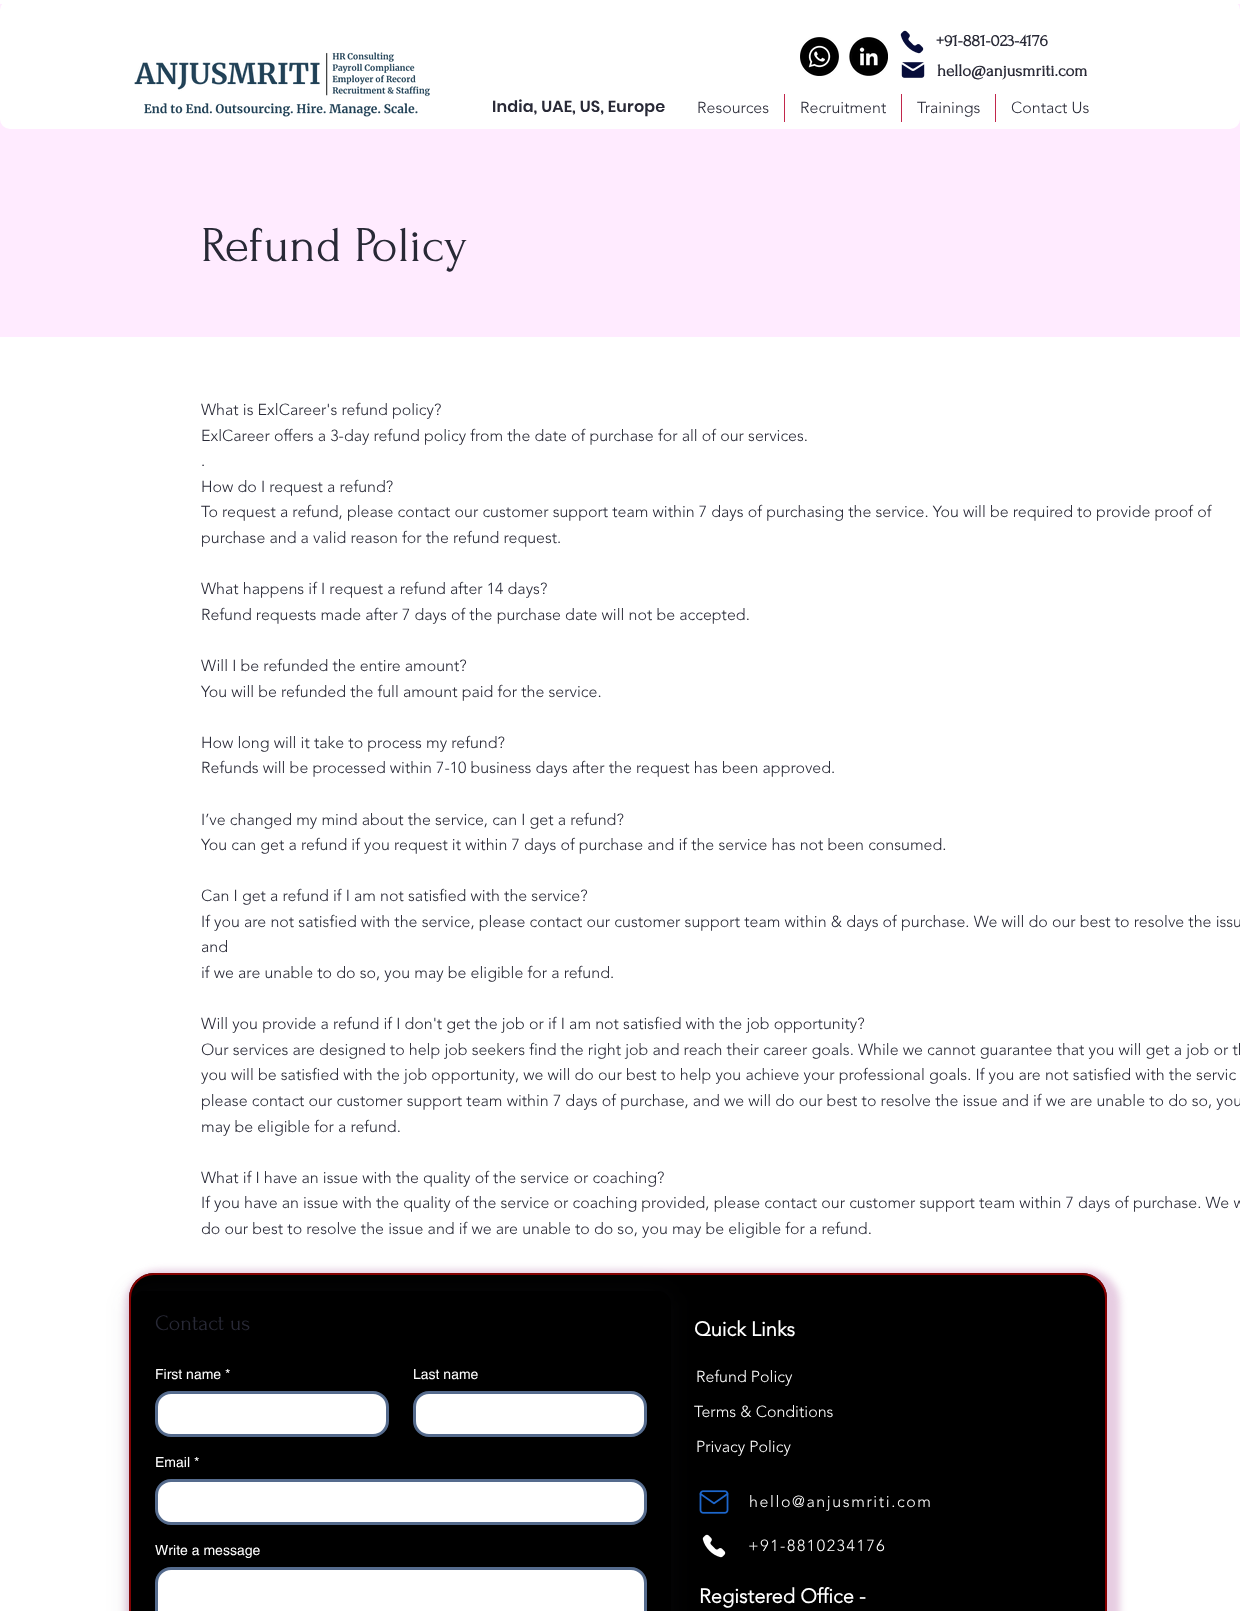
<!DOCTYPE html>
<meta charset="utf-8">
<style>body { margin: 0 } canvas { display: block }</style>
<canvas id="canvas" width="1240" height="1611"></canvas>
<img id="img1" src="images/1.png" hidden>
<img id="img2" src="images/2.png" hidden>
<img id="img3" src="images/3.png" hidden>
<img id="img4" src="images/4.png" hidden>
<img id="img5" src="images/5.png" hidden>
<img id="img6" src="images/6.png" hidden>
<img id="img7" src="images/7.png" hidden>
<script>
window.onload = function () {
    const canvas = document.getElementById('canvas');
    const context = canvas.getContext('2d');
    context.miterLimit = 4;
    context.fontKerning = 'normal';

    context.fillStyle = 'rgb(255, 255, 255)';
    context.fillRect(0, 0, 1240, 1611);
    context.fillStyle = 'rgb(255, 235, 255)';
    context.fillRect(0, 4, 1240, 333);
    context.fillStyle = 'rgb(255, 255, 255)';
    context.beginPath();
    context.roundRect(0, 0, 1240, 129, 10);
    context.fill();
    context.drawImage(document.getElementById('img1'), 134, 52, 296, 65);
    context.drawImage(document.getElementById('img2'), 800, 37, 39, 39);
    context.drawImage(document.getElementById('img3'), 849, 37, 39, 39);
    context.drawImage(document.getElementById('img4'), 900, 30, 24, 24);
    context.drawImage(document.getElementById('img5'), 901, 62, 24, 16);
    context.fillStyle = 'rgb(194, 39, 75)';
    context.fillRect(784, 94, 1, 28);
    context.fillRect(901, 94, 1, 28);
    context.fillRect(995, 94, 1, 28);
    context.fillStyle = 'rgba(184, 108, 170, 0.34)';
    context.filter = 'blur(3.5px)';
    context.beginPath();
    context.roundRect(126, 1270, 994, 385, 33);
    context.fill();
    context.filter = 'none';
    context.fillStyle = 'rgb(0, 0, 0)';
    context.beginPath();
    context.roundRect(129, 1273, 978, 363, 25);
    context.fill();
    context.beginPath();
    context.roundRect(130, 1274, 976, 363, 24);
    context.strokeStyle = 'rgba(139, 0, 0, 0.97)';
    context.lineWidth = 2;
    context.stroke();
    context.save();
    context.beginPath();
    context.moveTo(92, 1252);
    context.lineTo(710, 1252);
    context.lineTo(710, 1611);
    context.lineTo(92, 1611);
    context.closePath();
    context.moveTo(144, 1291);
    context.lineTo(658, 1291);
    context.bezierCurveTo(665, 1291, 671, 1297, 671, 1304);
    context.lineTo(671, 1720);
    context.bezierCurveTo(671, 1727, 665, 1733, 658, 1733);
    context.lineTo(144, 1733);
    context.bezierCurveTo(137, 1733, 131, 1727, 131, 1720);
    context.lineTo(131, 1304);
    context.bezierCurveTo(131, 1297, 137, 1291, 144, 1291);
    context.closePath();
    context.clip('evenodd');
    context.fillStyle = 'rgba(40, 41, 54, 0.15)';
    context.filter = 'blur(12.5px)';
    context.beginPath();
    context.roundRect(131, 1291, 540, 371, 13);
    context.fill();
    context.filter = 'none';
    context.restore();
    context.fillStyle = 'rgb(255, 255, 255)';
    context.beginPath();
    context.roundRect(156.5, 1392.5, 231, 43, 14.5);
    context.fill();
    context.strokeStyle = 'rgb(85, 107, 141)';
    context.lineWidth = 3;
    context.stroke();
    context.beginPath();
    context.roundRect(414.5, 1392.5, 231, 43, 14.5);
    context.fill();
    context.stroke();
    context.beginPath();
    context.roundRect(156.5, 1480.5, 489, 43, 14.5);
    context.fill();
    context.stroke();
    context.beginPath();
    context.roundRect(156.5, 1568.5, 489, 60, 14.5);
    context.fill();
    context.stroke();
    context.drawImage(document.getElementById('img6'), 699, 1490, 30, 24);
    context.drawImage(document.getElementById('img7'), 702, 1534, 24, 24);
    context.font = 'bold 17px Forum';
    context.fillStyle = 'rgb(40, 41, 54)';
    context.fillText('+91-881-023-4176', 936, 46);
    context.fillText('hello@anjusmriti.com', 937, 76);
    context.letterSpacing = '0.2px';
    context.font = '600 16px Poppins';
    context.fillText('India, UAE, US, Europe', 492, 112);
    context.letterSpacing = '0px';
    context.font = '300 16px "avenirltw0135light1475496"';
    context.fillText('Resources', 697, 113);
    context.fillText('Recruitment', 800, 113);
    context.fillText('Trainings', 917, 113);
    context.fillText('Contact Us', 1011, 113);
    context.font = '50px Forum';
    context.fillText('Refund Policy', 201, 261);
    context.font = '300 16px "avenirltw0135light1475496"';
    context.fillText('What is ExlCareer\'s refund policy?', 201, 415);
    context.fillText('ExlCareer offers a 3-day refund policy from the date of purchase for all of our services.', 201, 441);
    context.fillText('.', 201, 466);
    context.fillText('How do I request a refund?', 201, 492);
    context.fillText('To request a refund, please contact our customer support team within 7 days of purchasing the service. You will be required to provide proof of', 201, 517);
    context.fillText('purchase and a valid reason for the refund request.', 201, 543);
    context.fillText('What happens if I request a refund after 14 days?', 201, 594);
    context.fillText('Refund requests made after 7 days of the purchase date will not be accepted.', 201, 620);
    context.fillText('Will I be refunded the entire amount?', 201, 671);
    context.fillText('You will be refunded the full amount paid for the service.', 201, 697);
    context.fillText('How long will it take to process my refund?', 201, 748);
    context.fillText('Refunds will be processed within 7-10 business days after the request has been approved.', 201, 773);
    context.fillText('I’ve changed my mind about the service, can I get a refund?', 201, 825);
    context.fillText('You can get a refund if you request it within 7 days of purchase and if the service has not been consumed.', 201, 850);
    context.fillText('Can I get a refund if I am not satisfied with the service?', 201, 901);
    context.fillText('If you are not satisfied with the service, please contact our customer support team within & days of purchase. We will do our best to resolve the issu', 201, 927);
    context.fillText('and', 201, 952);
    context.fillText('if we are unable to do so, you may be eligible for a refund.', 201, 978);
    context.fillText('Will you provide a refund if I don\'t get the job or if I am not satisfied with the job opportunity?', 201, 1029);
    context.fillText('Our services are designed to help job seekers find the right job and reach their career goals. While we cannot guarantee that you will get a job or th', 201, 1055);
    context.fillText('you will be satisfied with the job opportunity, we will do our best to help you achieve your professional goals. If you are not satisfied with the servic', 201, 1080);
    context.fillText('please contact our customer support team within 7 days of purchase, and we will do our best to resolve the issue and if we are unable to do so, you', 201, 1106);
    context.fillText('may be eligible for a refund.', 201, 1132);
    context.fillText('What if I have an issue with the quality of the service or coaching?', 201, 1183);
    context.fillText('If you have an issue with the quality of the service or coaching provided, please contact our customer support team within 7 days of purchase. We w', 201, 1208);
    context.fillText('do our best to resolve the issue and if we are unable to do so, you may be eligible for a refund.', 201, 1234);
    context.font = '22px Forum';
    context.fillText('Contact us', 155, 1330);
    context.font = '14px helvetica';
    context.fillStyle = 'rgb(255, 255, 255)';
    context.fillText('First name *', 155, 1379);
    context.fillText('Last name', 413, 1379);
    context.fillText('Email *', 155, 1467);
    context.fillText('Write a message', 155, 1555);
    context.font = 'bold 20px "avenirltw0135light1475496"';
    context.fillText('Quick Links', 694, 1336);
    context.font = '300 16px "avenirltw0135light1475496"';
    context.fillText('Refund Policy', 696, 1382);
    context.fillText('Terms & Conditions', 694, 1417);
    context.fillText('Privacy Policy', 696, 1452);
    context.letterSpacing = '1.6px';
    context.fillText('hello@anjusmriti.com', 749, 1507);
    context.fillText('+91-8810234176', 748, 1551);
    context.letterSpacing = '0px';
    context.font = 'bold 20px "avenirltw0135light1475496"';
    context.fillText('Registered Office -', 699, 1603);
};
</script>
